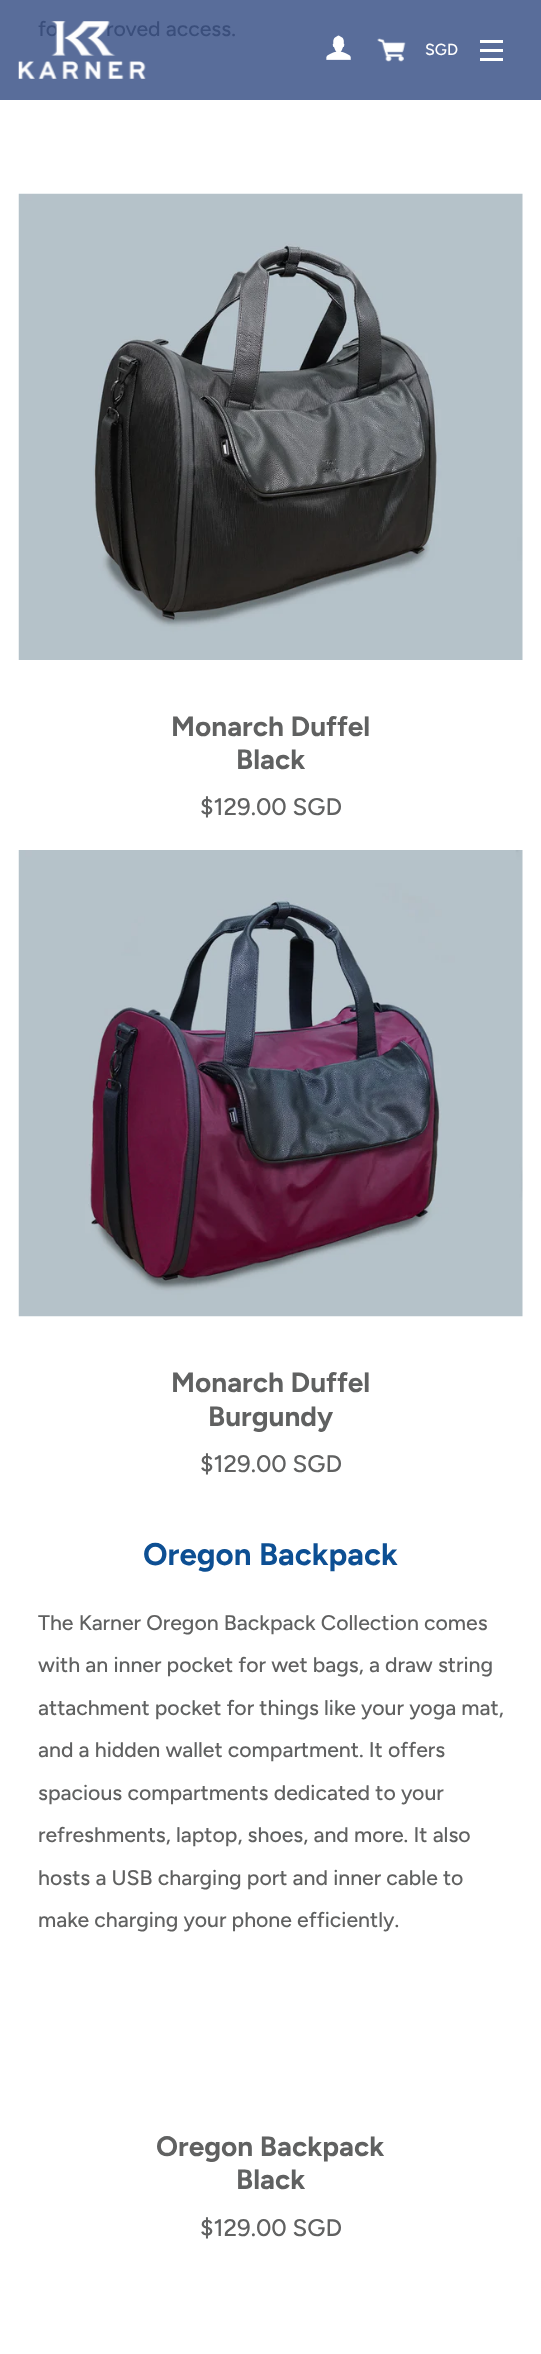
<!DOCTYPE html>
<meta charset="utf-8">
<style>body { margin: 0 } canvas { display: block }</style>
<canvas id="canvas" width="541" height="2354"></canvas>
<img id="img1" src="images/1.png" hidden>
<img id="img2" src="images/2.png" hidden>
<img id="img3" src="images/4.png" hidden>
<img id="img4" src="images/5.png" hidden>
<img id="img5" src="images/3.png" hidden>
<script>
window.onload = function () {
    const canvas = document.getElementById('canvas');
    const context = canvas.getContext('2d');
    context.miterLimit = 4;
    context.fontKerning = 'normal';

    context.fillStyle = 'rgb(255, 255, 255)';
    context.fillRect(0, 0, 541, 2354);
    context.fillStyle = 'rgb(89, 109, 154)';
    context.fillRect(0, 0, 541, 100);
    context.drawImage(document.getElementById('img1'), 18, 193, 505, 467);
    context.drawImage(document.getElementById('img2'), 18, 850, 505, 467);
    context.drawImage(document.getElementById('img3'), 326, 35, 25, 25);
    context.drawImage(document.getElementById('img4'), 377, 38, 29, 24);
    context.fillStyle = 'rgb(255, 255, 255)';
    context.fillRect(480, 40, 23, 3);
    context.fillRect(480, 49, 23, 3);
    context.fillRect(480, 58, 23, 3);
    context.font = '500 21.25px Figtree';
    context.fillStyle = 'rgb(58, 78, 123)';
    context.fillText('fo', 38, 36);
    context.fillText('roved access.', 106, 36);
    context.font = 'bold 28px Figtree';
    context.fillStyle = 'rgb(96, 97, 97)';
    context.fillText('Monarch Duffel', 171, 736);
    context.fillText('Black', 236, 769);
    context.font = '500 24px Figtree';
    context.fillText('$129.00 SGD', 200, 815);
    context.font = 'bold 28px Figtree';
    context.fillText('Monarch Duffel', 171, 1392);
    context.fillText('Burgundy', 208, 1426);
    context.font = '500 24px Figtree';
    context.fillText('$129.00 SGD', 200, 1472);
    context.font = 'bold 31.25px Figtree';
    context.fillStyle = 'rgb(13, 79, 147)';
    context.fillText('Oregon Backpack', 143, 1565);
    context.font = '500 21.25px Figtree';
    context.fillStyle = 'rgb(96, 97, 97)';
    context.fillText('The Karner Oregon Backpack Collection comes', 38, 1630);
    context.fillText('with an inner pocket for wet bags, a draw string', 38, 1672);
    context.fillText('attachment pocket for things like your yoga mat,', 38, 1715);
    context.fillText('and a hidden wallet compartment. It offers', 38, 1757);
    context.fillText('spacious compartments dedicated to your', 38, 1800);
    context.fillText('refreshments, laptop, shoes, and more. It also', 38, 1842);
    context.fillText('hosts a USB charging port and inner cable to', 38, 1885);
    context.fillText('make charging your phone efficiently.', 38, 1927);
    context.font = 'bold 28px Figtree';
    context.fillText('Oregon Backpack', 156, 2156);
    context.fillText('Black', 236, 2189);
    context.font = '500 24px Figtree';
    context.fillText('$129.00 SGD', 200, 2236);
    context.drawImage(document.getElementById('img5'), 18, 21, 128, 58);
    context.font = '500 16px Figtree';
    context.fillStyle = 'rgb(255, 255, 255)';
    context.fillText('SGD', 425, 55);
};
</script>
